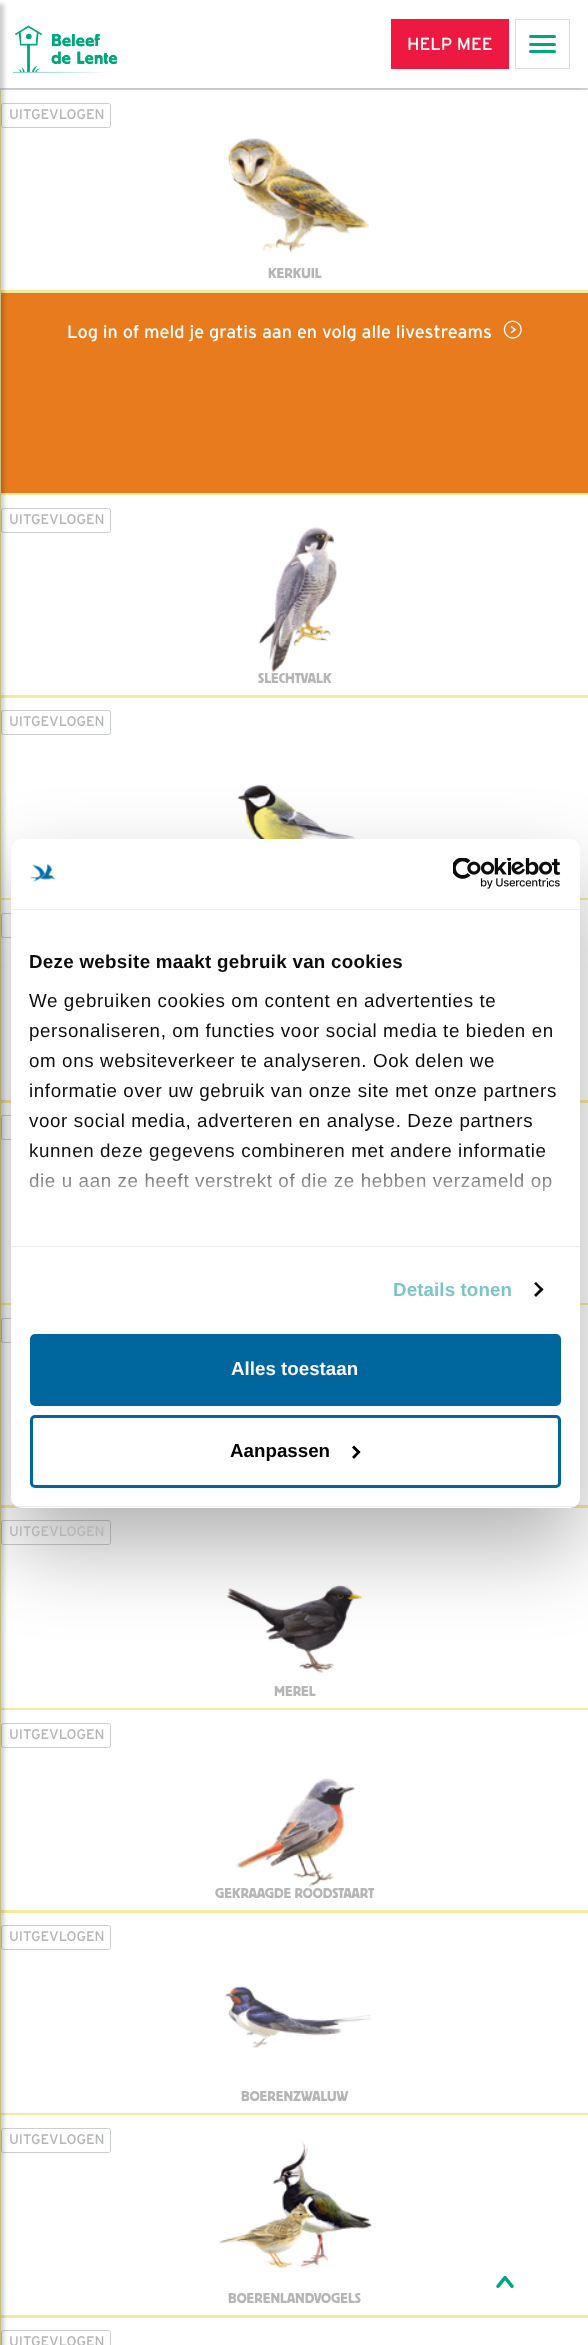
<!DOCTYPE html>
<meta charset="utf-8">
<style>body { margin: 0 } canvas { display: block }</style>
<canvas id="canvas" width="588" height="2345"></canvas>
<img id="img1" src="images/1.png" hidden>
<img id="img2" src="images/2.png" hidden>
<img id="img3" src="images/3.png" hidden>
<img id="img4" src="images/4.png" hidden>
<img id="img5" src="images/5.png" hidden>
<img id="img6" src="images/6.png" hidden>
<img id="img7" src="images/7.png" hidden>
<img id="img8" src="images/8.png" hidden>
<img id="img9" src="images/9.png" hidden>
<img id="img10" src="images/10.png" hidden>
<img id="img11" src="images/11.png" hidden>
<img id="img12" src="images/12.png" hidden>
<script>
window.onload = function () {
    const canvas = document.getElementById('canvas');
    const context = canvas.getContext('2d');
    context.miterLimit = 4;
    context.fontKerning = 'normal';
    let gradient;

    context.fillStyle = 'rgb(246, 235, 156)';
    context.fillRect(0, 0, 588, 2345);
    context.fillStyle = 'rgb(238, 238, 238)';
    context.fillRect(0, 88, 588, 3);
    context.fillStyle = 'rgba(0, 0, 0, 0.25)';
    context.filter = 'blur(5px)';
    context.beginPath();
    context.rect(0, 3, 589, 87);
    context.fill();
    context.filter = 'none';
    context.fillStyle = 'rgb(255, 255, 255)';
    context.fillRect(0, 0, 588, 88);
    context.fillRect(1, 90, 587, 200);
    context.beginPath();
    context.roundRect(1.5, 103.5, 109, 24, 2);
    context.strokeStyle = 'rgb(203, 208, 205)';
    context.stroke();
    context.fillStyle = 'rgb(232, 123, 30)';
    context.fillRect(1, 293, 587, 200);
    context.fillStyle = 'rgb(255, 255, 255)';
    context.fillRect(1, 495, 587, 200);
    context.beginPath();
    context.roundRect(1.5, 508.5, 109, 24, 2);
    context.stroke();
    context.fillRect(1, 698, 587, 200);
    context.beginPath();
    context.roundRect(1.5, 710.5, 109, 24, 2);
    context.stroke();
    context.fillRect(1, 900, 587, 200);
    context.beginPath();
    context.roundRect(1.5, 913.5, 109, 24, 2);
    context.stroke();
    context.fillRect(1, 1103, 587, 200);
    context.beginPath();
    context.roundRect(1.5, 1115.5, 109, 24, 2);
    context.stroke();
    context.fillRect(1, 1305, 587, 200);
    context.beginPath();
    context.roundRect(1.5, 1318.5, 109, 24, 2);
    context.stroke();
    context.fillRect(1, 1508, 587, 200);
    context.beginPath();
    context.roundRect(1.5, 1520.5, 109, 24, 2);
    context.stroke();
    context.fillRect(1, 1710, 587, 200);
    context.beginPath();
    context.roundRect(1.5, 1723.5, 109, 24, 2);
    context.stroke();
    context.fillRect(1, 1913, 587, 200);
    context.beginPath();
    context.roundRect(1.5, 1925.5, 109, 24, 2);
    context.stroke();
    context.fillRect(1, 2115, 587, 200);
    context.beginPath();
    context.roundRect(1.5, 2128.5, 109, 24, 2);
    context.stroke();
    context.fillRect(1, 2318, 587, 27);
    context.beginPath();
    context.roundRect(1.5, 2330.5, 109, 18, 2);
    context.stroke();
    context.fillStyle = 'rgba(0, 0, 0, 0.2)';
    context.filter = 'blur(2px)';
    context.beginPath();
    context.rect(-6, 4, 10, 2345);
    context.fill();
    context.filter = 'none';
    context.drawImage(document.getElementById('img1'), 12, 25, 106, 48);
    context.fillStyle = 'rgb(237, 25, 65)';
    context.fillRect(391, 19, 118, 50);
    context.strokeStyle = 'rgb(221, 221, 221)';
    context.strokeRect(515.5, 19.5, 54, 49);
    context.fillStyle = 'rgb(0, 167, 126)';
    context.beginPath();
    context.roundRect(529, 35, 27, 3, 1.5);
    context.fill();
    context.beginPath();
    context.roundRect(529, 43, 27, 3, 1.5);
    context.fill();
    context.beginPath();
    context.roundRect(529, 50, 27, 3, 1.5);
    context.fill();
    context.drawImage(document.getElementById('img2'), 227, 138, 142, 115);
    context.drawImage(document.getElementById('img3'), 503, 320, 19, 19);
    context.drawImage(document.getElementById('img4'), 258, 527, 80, 146);
    context.drawImage(document.getElementById('img5'), 237, 784, 119, 55);
    context.drawImage(document.getElementById('img6'), 227, 1585, 136, 89);
    context.drawImage(document.getElementById('img7'), 235, 1778, 120, 110);
    context.drawImage(document.getElementById('img8'), 225, 1986, 146, 63);
    context.drawImage(document.getElementById('img9'), 218, 2140, 154, 129);
    context.drawImage(document.getElementById('img10'), 496, 2275, 18, 13);
    context.fillStyle = 'rgba(0, 0, 0, 0.3)';
    context.filter = 'blur(42.5px)';
    context.beginPath();
    context.roundRect(11, 879, 569, 669, 10);
    context.fill();
    context.filter = 'none';
    context.fillStyle = 'rgb(255, 255, 255)';
    context.beginPath();
    context.roundRect(11, 839, 569, 669, 10);
    context.fill();
    context.fillStyle = 'rgb(238, 238, 238)';
    context.fillRect(11, 909, 569, 1);
    context.drawImage(document.getElementById('img11'), 30, 864, 26, 18);
    context.drawImage(document.getElementById('img12'), 453, 858, 108, 31);
    context.fillRect(11, 1246, 569, 1);
    context.fillStyle = 'rgb(13, 13, 13)';
    context.beginPath();
    context.moveTo(536, 1282);
    context.lineTo(543.5, 1289.5);
    context.lineTo(541.5, 1291);
    context.lineTo(534, 1283.5);
    context.closePath();
    context.fill();
    context.beginPath();
    context.moveTo(541.5, 1287.5);
    context.lineTo(543.5, 1289.5);
    context.lineTo(536, 1297);
    context.lineTo(534, 1295);
    context.closePath();
    context.fill();
    context.save();
    context.beginPath();
    context.roundRect(11, 839, 569, 669, 10);
    context.clip();
    context.fillStyle = 'rgb(238, 238, 238)';
    context.fillRect(11, 1506, 569, 1);
    context.restore();
    context.fillStyle = 'rgb(0, 102, 158)';
    context.beginPath();
    context.roundRect(31.5, 1335.5, 528, 69, 3.5);
    context.fill();
    context.strokeStyle = 'rgb(0, 102, 158)';
    context.lineWidth = 3;
    context.stroke();
    context.beginPath();
    context.roundRect(31.5, 1416.5, 528, 70, 3.5);
    context.stroke();
    context.fillStyle = 'rgb(0, 0, 0)';
    context.beginPath();
    context.moveTo(354, 1445.5);
    context.lineTo(360.5, 1452);
    context.lineTo(358.5, 1454);
    context.lineTo(352, 1447.5);
    context.closePath();
    context.fill();
    context.beginPath();
    context.moveTo(358.5, 1450.5);
    context.lineTo(360.5, 1452);
    context.lineTo(354, 1459);
    context.lineTo(352, 1457);
    context.closePath();
    context.fill();
    context.font = '17.5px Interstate';
    context.fillStyle = 'rgb(255, 255, 255)';
    context.fillText('HELP MEE', 407, 50);
    context.font = '14px Interstate';
    context.fillStyle = 'rgb(182, 182, 182)';
    context.fillText('UITGEVLOGEN', 9, 119);
    context.font = '15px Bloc';
    context.fillText('KERKUIL', 268, 278);
    context.font = '18px Interstate';
    context.fillStyle = 'rgb(255, 255, 255)';
    context.fillText('Log in of meld je gratis aan en volg alle livestreams', 67, 338);
    context.font = '14px Interstate';
    context.fillStyle = 'rgb(182, 182, 182)';
    context.fillText('UITGEVLOGEN', 9, 524);
    context.font = '15px Bloc';
    context.fillText('SLECHTVALK', 258, 683);
    context.font = '14px Interstate';
    context.fillText('UITGEVLOGEN', 9, 726);
    context.fillText('UITGEVLOGEN', 9, 1536);
    context.font = '15px Bloc';
    context.fillText('MEREL', 274, 1696);
    context.font = '14px Interstate';
    context.fillText('UITGEVLOGEN', 9, 1739);
    context.font = '15px Bloc';
    context.fillText('GEKRAAGDE ROODSTAART', 215, 1898);
    context.font = '14px Interstate';
    context.fillText('UITGEVLOGEN', 9, 1941);
    context.font = '15px Bloc';
    context.fillText('BOERENZWALUW', 241, 2101);
    context.font = '14px Interstate';
    context.fillText('UITGEVLOGEN', 9, 2144);
    context.font = '15px Bloc';
    context.fillText('BOERENLANDVOGELS', 228, 2303);
    context.font = '14px Interstate';
    context.fillText('UITGEVLOGEN', 9, 2346);
    context.letterSpacing = '0.3px';
    context.font = 'bold 18.75px Liberation Sans';
    context.fillStyle = 'rgb(13, 13, 13)';
    context.fillText('Deze website maakt gebruik van cookies', 29, 968);
    context.letterSpacing = '0.62px';
    context.font = '18.75px Liberation Sans';
    context.fillText('We gebruiken cookies om content en advertenties te', 29, 1007);
    context.fillText('personaliseren, om functies voor social media te bieden en', 29, 1037);
    context.fillText('om ons websiteverkeer te analyseren. Ook delen we', 29, 1067);
    context.fillText('informatie over uw gebruik van onze site met onze partners', 29, 1097);
    context.fillText('voor social media, adverteren en analyse. Deze partners', 29, 1127);
    context.fillText('kunnen deze gegevens combineren met andere informatie', 29, 1157);
    context.fillText('die u aan ze heeft verstrekt of die ze hebben verzameld op', 29, 1187);
    gradient = context.createLinearGradient(287, 1246, 287, 1152);
    gradient.addColorStop(0, 'rgb(255, 255, 255)');
    gradient.addColorStop(0.5, 'rgba(255, 255, 255, 0.8)');
    gradient.addColorStop(1, 'rgba(255, 255, 255, 0)');
    context.fillStyle = gradient;
    context.fillRect(29, 1153, 523, 38);
    context.letterSpacing = '0.1px';
    context.font = 'bold 18.75px Liberation Sans';
    context.fillStyle = 'rgb(124, 196, 203)';
    context.fillText('Details tonen', 393, 1296);
    context.letterSpacing = '0px';
    context.fillStyle = 'rgb(251, 249, 249)';
    context.fillText('Alles toestaan', 231, 1375);
    context.fillStyle = 'rgb(0, 0, 0)';
    context.fillText('Aanpassen', 230, 1457);
};
</script>
